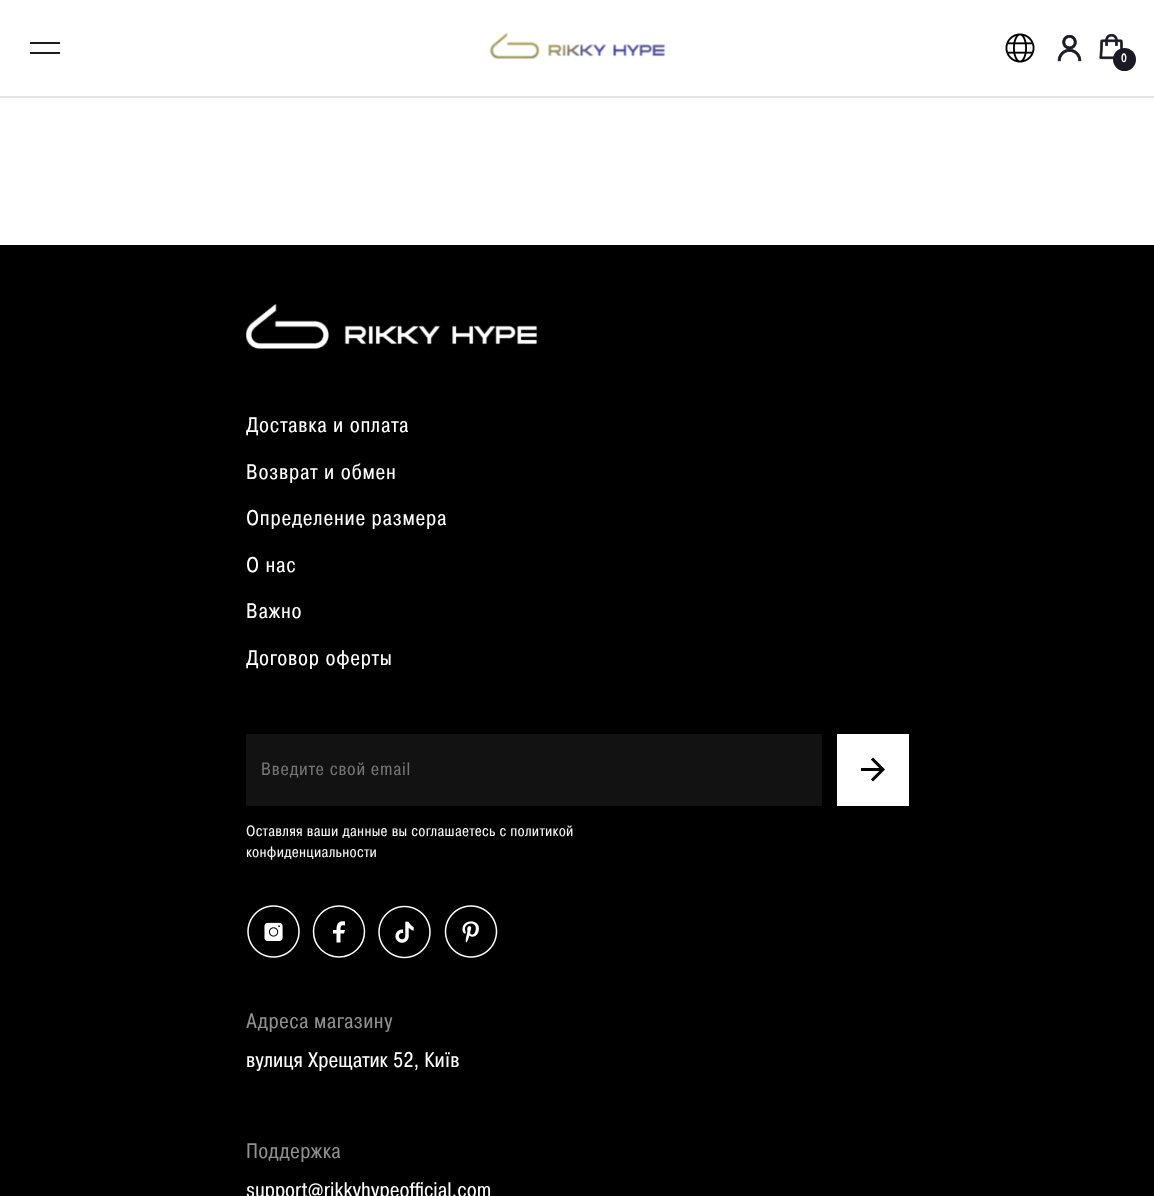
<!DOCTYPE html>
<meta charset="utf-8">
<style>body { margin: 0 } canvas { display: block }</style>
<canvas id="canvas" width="1154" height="1196"></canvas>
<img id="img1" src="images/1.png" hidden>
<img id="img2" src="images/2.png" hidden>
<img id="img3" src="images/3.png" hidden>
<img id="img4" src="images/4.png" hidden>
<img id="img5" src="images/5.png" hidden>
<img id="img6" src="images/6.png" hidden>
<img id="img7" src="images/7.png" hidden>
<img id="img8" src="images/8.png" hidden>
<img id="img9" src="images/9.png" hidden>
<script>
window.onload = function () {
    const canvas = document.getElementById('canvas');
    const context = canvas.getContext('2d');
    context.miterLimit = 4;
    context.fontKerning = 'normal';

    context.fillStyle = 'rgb(255, 255, 255)';
    context.fillRect(0, 0, 1154, 1196);
    context.fillStyle = 'rgb(226, 226, 228)';
    context.fillRect(0, 96, 1154, 2);
    context.fillStyle = 'rgb(26, 25, 36)';
    context.beginPath();
    context.moveTo(60, 42);
    context.lineTo(30, 42);
    context.lineTo(30, 44);
    context.lineTo(60, 44);
    context.closePath();
    context.moveTo(60, 52);
    context.lineTo(30, 52);
    context.lineTo(30, 54);
    context.lineTo(60, 54);
    context.closePath();
    context.fill('evenodd');
    context.drawImage(document.getElementById('img1'), 489, 32, 177, 28);
    context.drawImage(document.getElementById('img2'), 1005, 33, 30, 30);
    context.drawImage(document.getElementById('img3'), 1057, 35, 25, 27);
    context.drawImage(document.getElementById('img4'), 1099, 33, 24, 27);
    context.beginPath();
    context.arc(1124.5, 59.5, 11.5, 0, 2 * Math.PI);
    context.fill();
    context.fillStyle = 'rgb(0, 0, 0)';
    context.fillRect(0, 245, 1154, 951);
    context.drawImage(document.getElementById('img5'), 246, 304, 291, 45);
    context.fillStyle = 'rgb(18, 18, 19)';
    context.fillRect(246, 734, 576, 72);
    context.fillStyle = 'rgb(255, 255, 255)';
    context.fillRect(837, 734, 72, 72);
    context.drawImage(document.getElementById('img6'), 861, 757, 24, 25);
    context.drawImage(document.getElementById('img7'), 247, 905, 53, 53);
    context.beginPath();
    context.arc(339, 931.5, 25.5, 0, 2 * Math.PI);
    context.strokeStyle = 'rgb(255, 255, 255)';
    context.lineWidth = 1.5;
    context.stroke();
    context.beginPath();
    context.moveTo(340.5, 933.5);
    context.lineTo(340.5, 942.5);
    context.lineTo(336.5, 942.5);
    context.lineTo(336.5, 933.5);
    context.lineTo(333, 933.5);
    context.lineTo(333, 930);
    context.lineTo(336.5, 930);
    context.bezierCurveTo(336.5, 924, 338.5, 920, 345, 921.5);
    context.lineTo(345, 925.5);
    context.bezierCurveTo(341, 924.5, 340.5, 926, 340.5, 930);
    context.lineTo(345, 930);
    context.lineTo(344, 933.5);
    context.closePath();
    context.fill();
    context.drawImage(document.getElementById('img8'), 378, 905, 53, 54);
    context.drawImage(document.getElementById('img9'), 444, 905, 54, 53);
    context.letterSpacing = '0.3px';
    context.font = '500 12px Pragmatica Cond';
    context.fillText('0', 1121, 62);
    context.letterSpacing = '0.75px';
    context.font = '21px Pragmatica Cond';
    context.fillText('Доставка и оплата', 246, 432);
    context.fillText('Возврат и обмен', 246, 479);
    context.fillText('Определение размера', 246, 525);
    context.fillText('О нас', 246, 572);
    context.fillText('Важно', 246, 618);
    context.fillText('Договор оферты', 246, 665);
    context.font = '18px Pragmatica Cond';
    context.fillStyle = 'rgb(117, 117, 117)';
    context.fillText('Введите свой email', 261, 775);
    context.letterSpacing = '0.3px';
    context.font = '15px Pragmatica Cond';
    context.fillStyle = 'rgb(246, 246, 246)';
    context.fillText('Оставляя ваши данные вы соглашаетесь с политикой', 246, 836);
    context.fillText('конфиденциальности', 246, 857);
    context.letterSpacing = '0.4px';
    context.font = '21px Pragmatica Cond';
    context.fillStyle = 'rgb(143, 143, 143)';
    context.fillText('Адреса магазину', 246, 1028);
    context.letterSpacing = '0px';
    context.fillStyle = 'rgb(255, 255, 255)';
    context.fillText('вулиця Хрещатик 52, Київ', 246, 1067);
    context.letterSpacing = '0.4px';
    context.fillStyle = 'rgb(143, 143, 143)';
    context.fillText('Поддержка', 246, 1158);
    context.letterSpacing = '0px';
    context.fillStyle = 'rgb(255, 255, 255)';
    context.fillText('support@rikkyhypeofficial.com', 246, 1197);
};
</script>
